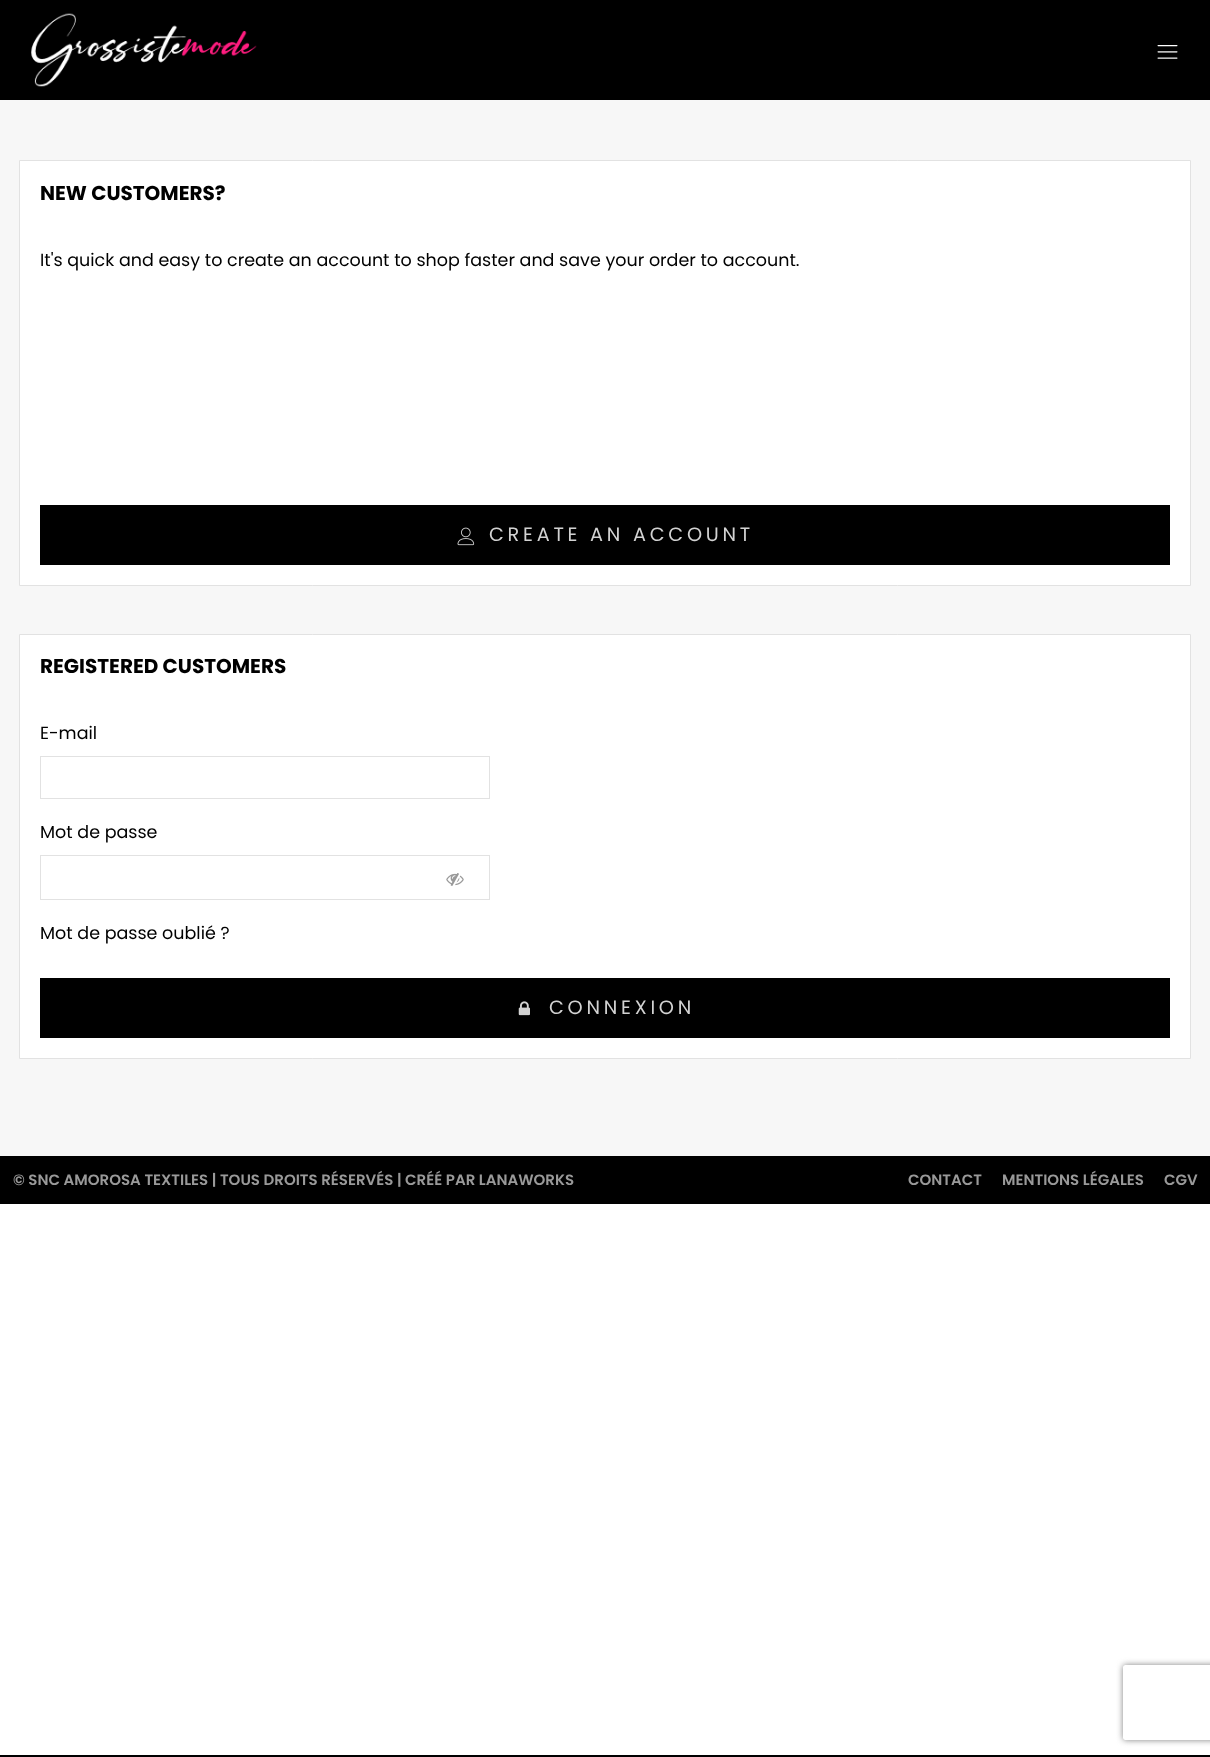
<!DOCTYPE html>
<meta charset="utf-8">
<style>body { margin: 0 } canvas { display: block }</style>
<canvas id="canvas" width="1210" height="1757"></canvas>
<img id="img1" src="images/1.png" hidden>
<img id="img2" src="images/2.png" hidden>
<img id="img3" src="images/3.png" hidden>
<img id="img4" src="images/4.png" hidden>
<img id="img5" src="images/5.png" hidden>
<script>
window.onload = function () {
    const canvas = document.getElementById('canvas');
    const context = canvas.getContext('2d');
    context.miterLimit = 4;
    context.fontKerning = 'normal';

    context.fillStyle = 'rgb(255, 255, 255)';
    context.fillRect(0, 0, 1210, 1757);
    context.fillStyle = 'rgb(0, 0, 0)';
    context.fillRect(0, 0, 1210, 100);
    context.drawImage(document.getElementById('img1'), 31, 13, 226, 74);
    context.drawImage(document.getElementById('img2'), 1157, 45, 21, 14);
    context.fillStyle = 'rgb(247, 247, 247)';
    context.fillRect(0, 100, 1210, 1056);
    context.fillStyle = 'rgb(255, 255, 255)';
    context.beginPath();
    context.rect(19.5, 160.5, 1171, 425);
    context.fill();
    context.strokeStyle = 'rgb(226, 226, 226)';
    context.stroke();
    context.fillStyle = 'rgb(0, 0, 0)';
    context.fillRect(40, 505, 1130, 60);
    context.drawImage(document.getElementById('img3'), 457, 527, 18, 19);
    context.fillStyle = 'rgb(255, 255, 255)';
    context.beginPath();
    context.rect(19.5, 634.5, 1171, 424);
    context.fill();
    context.stroke();
    context.strokeRect(40.5, 756.5, 449, 42);
    context.strokeRect(40.5, 855.5, 449, 44);
    context.drawImage(document.getElementById('img4'), 446, 873, 18, 13);
    context.fillStyle = 'rgb(0, 0, 0)';
    context.fillRect(40, 978, 1130, 60);
    context.drawImage(document.getElementById('img5'), 518, 1001, 12, 15);
    context.fillRect(0, 1156, 1210, 48);
    context.fillRect(0, 1755, 1210, 2);
    context.save();
    context.beginPath();
    context.moveTo(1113, 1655);
    context.lineTo(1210, 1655);
    context.lineTo(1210, 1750);
    context.lineTo(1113, 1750);
    context.closePath();
    context.moveTo(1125.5, 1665);
    context.lineTo(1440.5, 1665);
    context.bezierCurveTo(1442, 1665, 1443, 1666, 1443, 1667.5);
    context.lineTo(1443, 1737.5);
    context.bezierCurveTo(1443, 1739, 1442, 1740, 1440.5, 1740);
    context.lineTo(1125.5, 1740);
    context.bezierCurveTo(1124, 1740, 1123, 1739, 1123, 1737.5);
    context.lineTo(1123, 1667.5);
    context.bezierCurveTo(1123, 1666, 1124, 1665, 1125.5, 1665);
    context.closePath();
    context.clip('evenodd');
    context.fillStyle = 'rgb(128, 128, 128)';
    context.filter = 'blur(3px)';
    context.beginPath();
    context.roundRect(1123, 1665, 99, 75, 2.5);
    context.fill();
    context.filter = 'none';
    context.restore();
    context.font = 'bold 20px Poppins';
    context.fillText('NEW CUSTOMERS?', 40, 200);
    context.font = '17.5px Poppins';
    context.fillText('It\'s quick and easy to create an account to shop faster and save your order to account.', 40, 266);
    context.letterSpacing = '3.75px';
    context.font = '19.25px Poppins';
    context.fillStyle = 'rgb(210, 210, 210)';
    context.fillText('CREATE AN ACCOUNT', 489, 541);
    context.letterSpacing = '0px';
    context.font = 'bold 20px Poppins';
    context.fillStyle = 'rgb(0, 0, 0)';
    context.fillText('REGISTERED CUSTOMERS', 40, 673);
    context.font = '17.5px Poppins';
    context.fillText('E-mail', 40, 739);
    context.fillText('Mot de passe', 40, 838);
    context.fillText('Mot de passe oublié ?', 40, 939);
    context.letterSpacing = '3.75px';
    context.font = '19.25px Poppins';
    context.fillStyle = 'rgb(210, 210, 210)';
    context.fillText('CONNEXION', 549, 1014);
    context.letterSpacing = '0px';
    context.font = '600 15px Poppins';
    context.fillStyle = 'rgb(153, 153, 153)';
    context.fillText('© SNC AMOROSA TEXTILES | TOUS DROITS RÉSERVÉS | CRÉÉ PAR LANAWORKS', 13, 1185);
    context.fillText('CONTACT', 908, 1185);
    context.fillText('MENTIONS LÉGALES', 1002, 1185);
    context.fillText('CGV', 1164, 1185);
};
</script>
